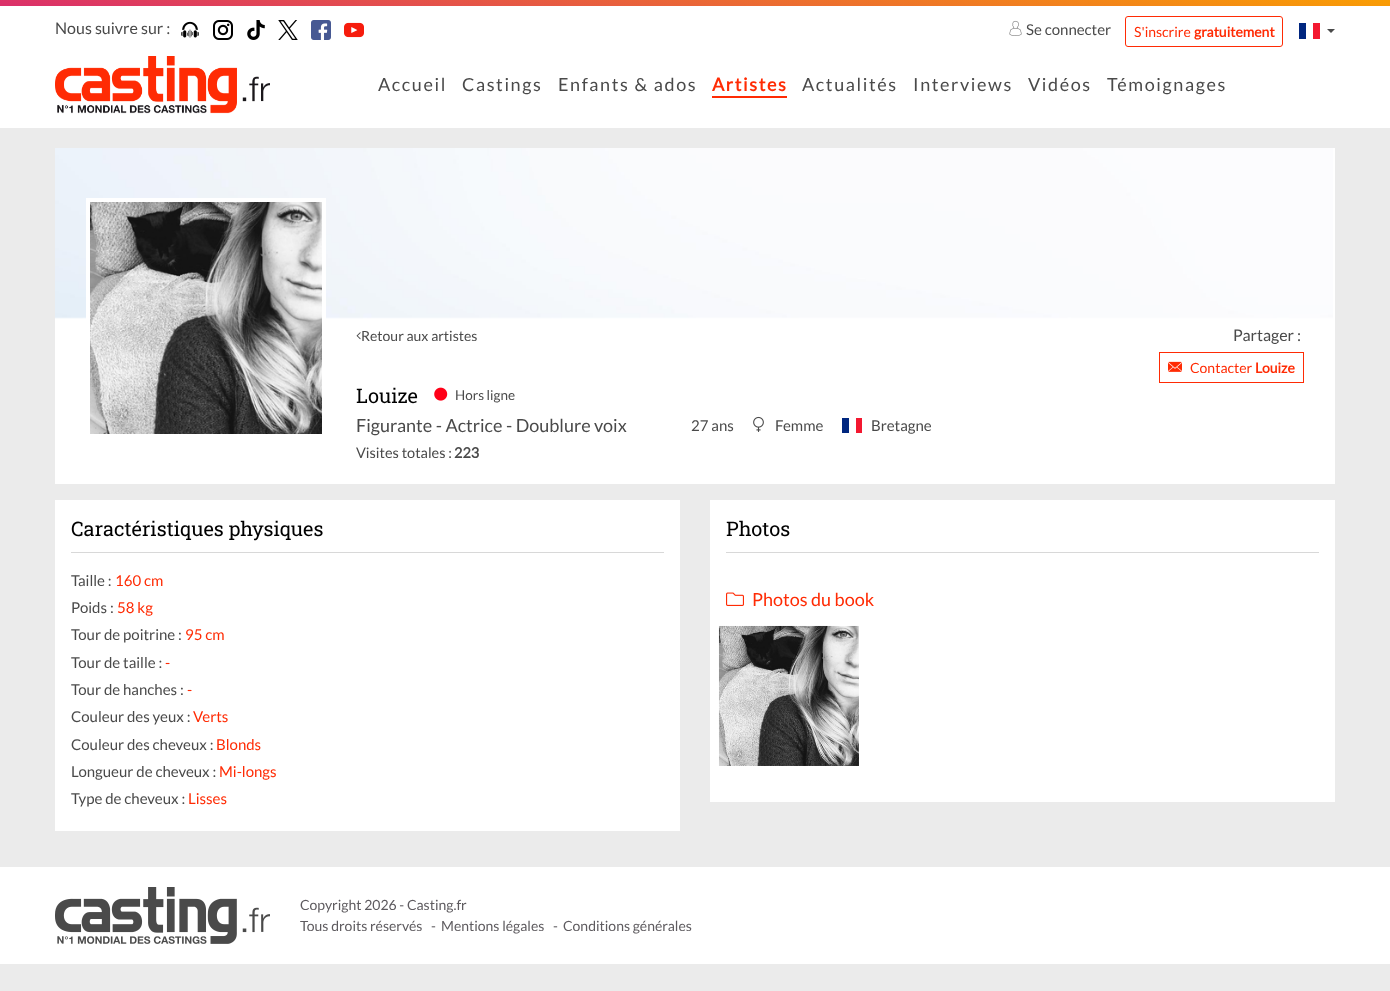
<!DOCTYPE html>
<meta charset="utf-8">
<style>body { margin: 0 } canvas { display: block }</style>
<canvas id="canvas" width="1390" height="991"></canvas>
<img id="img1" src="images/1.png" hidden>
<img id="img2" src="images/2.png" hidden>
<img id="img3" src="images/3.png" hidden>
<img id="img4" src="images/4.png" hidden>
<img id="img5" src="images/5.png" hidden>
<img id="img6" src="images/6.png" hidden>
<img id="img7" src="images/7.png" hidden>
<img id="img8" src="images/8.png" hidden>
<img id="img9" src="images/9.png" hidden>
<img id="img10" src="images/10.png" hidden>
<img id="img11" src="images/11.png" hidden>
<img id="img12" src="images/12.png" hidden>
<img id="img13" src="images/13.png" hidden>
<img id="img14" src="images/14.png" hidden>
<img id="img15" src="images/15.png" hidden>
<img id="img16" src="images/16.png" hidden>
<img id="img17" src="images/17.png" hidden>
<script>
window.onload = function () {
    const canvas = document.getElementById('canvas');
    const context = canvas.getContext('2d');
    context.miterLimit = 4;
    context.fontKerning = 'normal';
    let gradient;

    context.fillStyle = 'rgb(235, 235, 235)';
    context.fillRect(0, 0, 1390, 991);
    context.fillStyle = 'rgb(255, 255, 255)';
    context.fillRect(0, 6, 1390, 122);
    gradient = context.createLinearGradient(706, -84, 684, 90);
    gradient.addColorStop(0, 'rgb(249, 156, 4)');
    gradient.addColorStop(1, 'rgb(219, 48, 105)');
    context.fillStyle = gradient;
    context.fillRect(0, 0, 1390, 6);
    context.drawImage(document.getElementById('img1'), 181, 21, 18, 17);
    context.drawImage(document.getElementById('img2'), 213, 20, 20, 20);
    context.drawImage(document.getElementById('img3'), 247, 20, 18, 20);
    context.drawImage(document.getElementById('img4'), 278, 20, 20, 20);
    context.drawImage(document.getElementById('img5'), 311, 20, 20, 20);
    context.drawImage(document.getElementById('img6'), 344, 22, 20, 16);
    context.drawImage(document.getElementById('img7'), 1009, 20, 13, 16);
    context.beginPath();
    context.roundRect(1125.5, 16.5, 157, 30, 2.5);
    context.strokeStyle = 'rgb(255, 43, 4)';
    context.stroke();
    context.fillStyle = 'rgb(0, 38, 127)';
    context.fillRect(1299, 23, 7, 16);
    context.fillStyle = 'rgb(243, 24, 48)';
    context.fillRect(1313, 23, 7, 16);
    context.fillStyle = 'rgb(74, 74, 74)';
    context.beginPath();
    context.moveTo(1327, 29);
    context.lineTo(1335, 29);
    context.lineTo(1331, 33);
    context.closePath();
    context.fill();
    context.drawImage(document.getElementById('img8'), 55, 56, 215, 58);
    context.fillStyle = 'rgb(255, 43, 4)';
    context.fillRect(712, 96, 75, 2);
    context.fillStyle = 'rgb(255, 255, 255)';
    context.fillRect(55, 148, 1280, 336);
    context.drawImage(document.getElementById('img9'), 55, 148, 1278, 171);
    context.strokeStyle = 'rgb(255, 255, 255)';
    context.lineWidth = 4;
    context.strokeRect(88, 200, 236, 236);
    context.drawImage(document.getElementById('img10'), 90, 202, 232, 232);
    context.drawImage(document.getElementById('img11'), 356, 332, 5, 8);
    context.strokeStyle = 'rgb(255, 43, 4)';
    context.lineWidth = 1;
    context.strokeRect(1159.5, 352.5, 144, 30);
    context.drawImage(document.getElementById('img12'), 1168, 361, 14, 11);
    context.drawImage(document.getElementById('img13'), 434, 387, 14, 14);
    context.drawImage(document.getElementById('img14'), 753, 416, 11, 16);
    context.fillStyle = 'rgb(0, 38, 127)';
    context.fillRect(842, 418, 7, 15);
    context.fillStyle = 'rgb(243, 24, 48)';
    context.fillRect(856, 418, 6, 15);
    context.fillStyle = 'rgb(255, 255, 255)';
    context.fillRect(55, 500, 625, 331);
    context.fillStyle = 'rgb(216, 216, 216)';
    context.fillRect(71, 552, 593, 1);
    context.fillStyle = 'rgb(255, 255, 255)';
    context.fillRect(710, 500, 625, 302);
    context.fillStyle = 'rgb(216, 216, 216)';
    context.fillRect(726, 552, 593, 1);
    context.drawImage(document.getElementById('img15'), 726, 592, 18, 14);
    context.drawImage(document.getElementById('img16'), 718, 625, 141, 141);
    context.fillStyle = 'rgb(255, 255, 255)';
    context.fillRect(0, 867, 1390, 97);
    context.drawImage(document.getElementById('img17'), 55, 887, 215, 57);
    context.font = '16px Lato';
    context.fillStyle = 'rgb(74, 74, 74)';
    context.fillText('Nous suivre sur :', 55, 34);
    context.font = '15px Lato';
    context.fillText('Se connecter', 1026, 35);
    context.font = '14px Lato';
    context.fillStyle = 'rgb(255, 43, 4)';
    context.fillText('S\'inscrire', 1134, 37);
    context.font = 'bold 14px Lato';
    context.fillText('gratuitement', 1194, 37);
    context.letterSpacing = '1.6px';
    context.font = '18px Lato';
    context.fillStyle = 'rgb(74, 74, 74)';
    context.fillText('Accueil', 378, 91);
    context.fillText('Castings', 462, 91);
    context.fillText('Enfants & ados', 558, 91);
    context.font = 'bold 18px Lato';
    context.fillStyle = 'rgb(255, 43, 4)';
    context.fillText('Artistes', 712, 91);
    context.font = '18px Lato';
    context.fillStyle = 'rgb(74, 74, 74)';
    context.fillText('Actualités', 802, 91);
    context.fillText('Interviews', 913, 91);
    context.fillText('Vidéos', 1028, 91);
    context.fillText('Témoignages', 1107, 91);
    context.letterSpacing = '0px';
    context.font = '14px Lato';
    context.fillText('Retour aux artistes', 361, 341);
    context.font = '16px Lato';
    context.fillText('Partager :', 1233, 341);
    context.font = '14px Lato';
    context.fillStyle = 'rgb(255, 43, 4)';
    context.fillText('Contacter', 1190, 373);
    context.font = 'bold 14px Lato';
    context.fillText('Louize', 1255, 373);
    context.font = '20px Roboto Slab';
    context.fillStyle = 'rgb(0, 0, 0)';
    context.fillText('Louize', 356, 403);
    context.font = '13.5px Lato';
    context.fillStyle = 'rgb(74, 74, 74)';
    context.fillText('Hors ligne', 455, 400);
    context.font = '18px Lato';
    context.fillText('Figurante - Actrice - Doublure voix', 356, 432);
    context.font = '15px Lato';
    context.fillText('27 ans', 691, 431);
    context.fillText('Femme', 775, 431);
    context.fillText('Bretagne', 871, 431);
    context.font = '14.5px Lato';
    context.fillText('Visites totales :', 356, 458);
    context.font = 'bold 14.5px Lato';
    context.fillText('223', 454, 458);
    context.font = '20px Roboto Slab';
    context.fillStyle = 'rgb(0, 0, 0)';
    context.fillText('Caractéristiques physiques', 71, 536);
    context.font = '15px Lato';
    context.fillStyle = 'rgb(74, 74, 74)';
    context.fillText('Taille :', 71, 586);
    context.fillStyle = 'rgb(255, 43, 4)';
    context.fillText('160 cm', 115, 586);
    context.fillStyle = 'rgb(74, 74, 74)';
    context.fillText('Poids :', 71, 613);
    context.fillStyle = 'rgb(255, 43, 4)';
    context.fillText('58 kg', 117, 613);
    context.fillStyle = 'rgb(74, 74, 74)';
    context.fillText('Tour de poitrine :', 71, 640);
    context.fillStyle = 'rgb(255, 43, 4)';
    context.fillText('95 cm', 185, 640);
    context.fillStyle = 'rgb(74, 74, 74)';
    context.fillText('Tour de taille :', 71, 668);
    context.fillStyle = 'rgb(255, 43, 4)';
    context.fillText('-', 165, 668);
    context.fillStyle = 'rgb(74, 74, 74)';
    context.fillText('Tour de hanches :', 71, 695);
    context.fillStyle = 'rgb(255, 43, 4)';
    context.fillText('-', 187, 695);
    context.fillStyle = 'rgb(74, 74, 74)';
    context.fillText('Couleur des yeux :', 71, 722);
    context.fillStyle = 'rgb(255, 43, 4)';
    context.fillText('Verts', 193, 722);
    context.fillStyle = 'rgb(74, 74, 74)';
    context.fillText('Couleur des cheveux :', 71, 750);
    context.fillStyle = 'rgb(255, 43, 4)';
    context.fillText('Blonds', 216, 750);
    context.fillStyle = 'rgb(74, 74, 74)';
    context.fillText('Longueur de cheveux :', 71, 777);
    context.fillStyle = 'rgb(255, 43, 4)';
    context.fillText('Mi-longs', 219, 777);
    context.fillStyle = 'rgb(74, 74, 74)';
    context.fillText('Type de cheveux :', 71, 804);
    context.fillStyle = 'rgb(255, 43, 4)';
    context.fillText('Lisses', 188, 804);
    context.font = '20px Roboto Slab';
    context.fillStyle = 'rgb(0, 0, 0)';
    context.fillText('Photos', 726, 536);
    context.font = '18px Lato';
    context.fillStyle = 'rgb(255, 43, 4)';
    context.fillText('Photos du book', 752, 606);
    context.font = '14px Lato';
    context.fillStyle = 'rgb(94, 91, 95)';
    context.fillText('Copyright 2026 - Casting.fr', 300, 910);
    context.fillText('Tous droits réservés', 300, 931);
    context.fillText('-', 431, 931);
    context.fillText('Mentions légales', 441, 931);
    context.fillText('-', 553, 931);
    context.fillText('Conditions générales', 563, 931);
};
</script>
